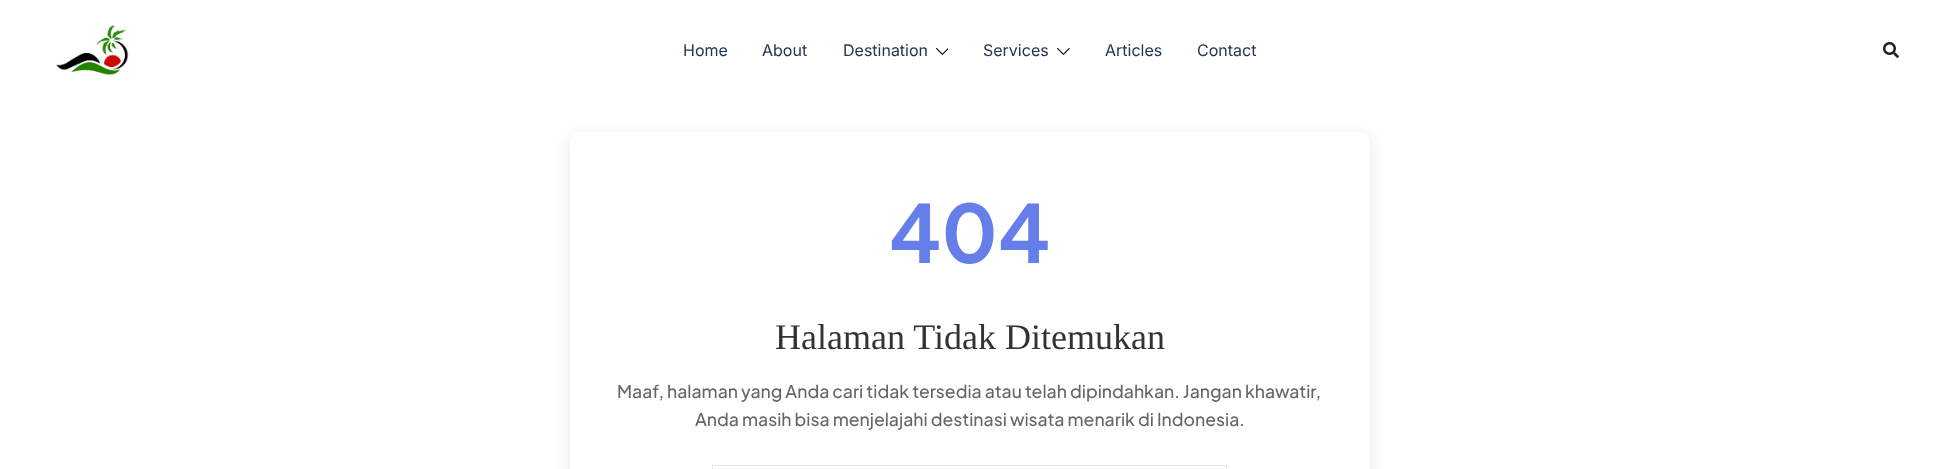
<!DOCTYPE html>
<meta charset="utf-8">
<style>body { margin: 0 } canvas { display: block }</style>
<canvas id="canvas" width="1939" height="469"></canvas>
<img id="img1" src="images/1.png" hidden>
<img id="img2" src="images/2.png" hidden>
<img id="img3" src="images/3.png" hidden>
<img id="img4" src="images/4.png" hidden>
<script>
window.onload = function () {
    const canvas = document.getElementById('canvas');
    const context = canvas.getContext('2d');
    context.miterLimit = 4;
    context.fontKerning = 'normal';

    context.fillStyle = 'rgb(255, 255, 255)';
    context.fillRect(0, 0, 1939, 469);
    context.drawImage(document.getElementById('img1'), 56, 25, 73, 50);
    context.drawImage(document.getElementById('img2'), 936, 48, 12, 7);
    context.drawImage(document.getElementById('img3'), 1057, 48, 13, 7);
    context.drawImage(document.getElementById('img4'), 1883, 42, 16, 16);
    context.fillStyle = 'rgba(0, 0, 0, 0.1)';
    context.filter = 'blur(7.5px)';
    context.beginPath();
    context.roundRect(570, 137, 800, 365, 10);
    context.fill();
    context.filter = 'none';
    context.fillStyle = 'rgb(255, 255, 255)';
    context.beginPath();
    context.roundRect(570, 132, 800, 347, 10);
    context.fill();
    context.strokeStyle = 'rgb(229, 229, 229)';
    context.strokeRect(712.5, 465.5, 514, 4);
    context.font = '16px Inter';
    context.fillStyle = 'rgb(35, 52, 82)';
    context.fillText('Home', 683, 56);
    context.fillText('About', 762, 56);
    context.fillText('Destination', 843, 56);
    context.fillText('Services', 983, 56);
    context.fillText('Articles', 1105, 56);
    context.fillText('Contact', 1197, 56);
    context.font = 'bold 80px Plus Jakarta Sans';
    context.fillStyle = 'rgb(102, 126, 234)';
    context.fillText('404', 889, 263);
    context.font = '36px Liberation Serif';
    context.fillStyle = 'rgb(51, 51, 51)';
    context.fillText('Halaman Tidak Ditemukan', 775, 349);
    context.font = '500 17.6px Plus Jakarta Sans';
    context.fillStyle = 'rgb(102, 102, 102)';
    context.fillText('Maaf, halaman yang Anda cari tidak tersedia atau telah dipindahkan. Jangan khawatir,', 617, 398);
    context.fillText('Anda masih bisa menjelajahi destinasi wisata menarik di Indonesia.', 695, 426);
};
</script>
